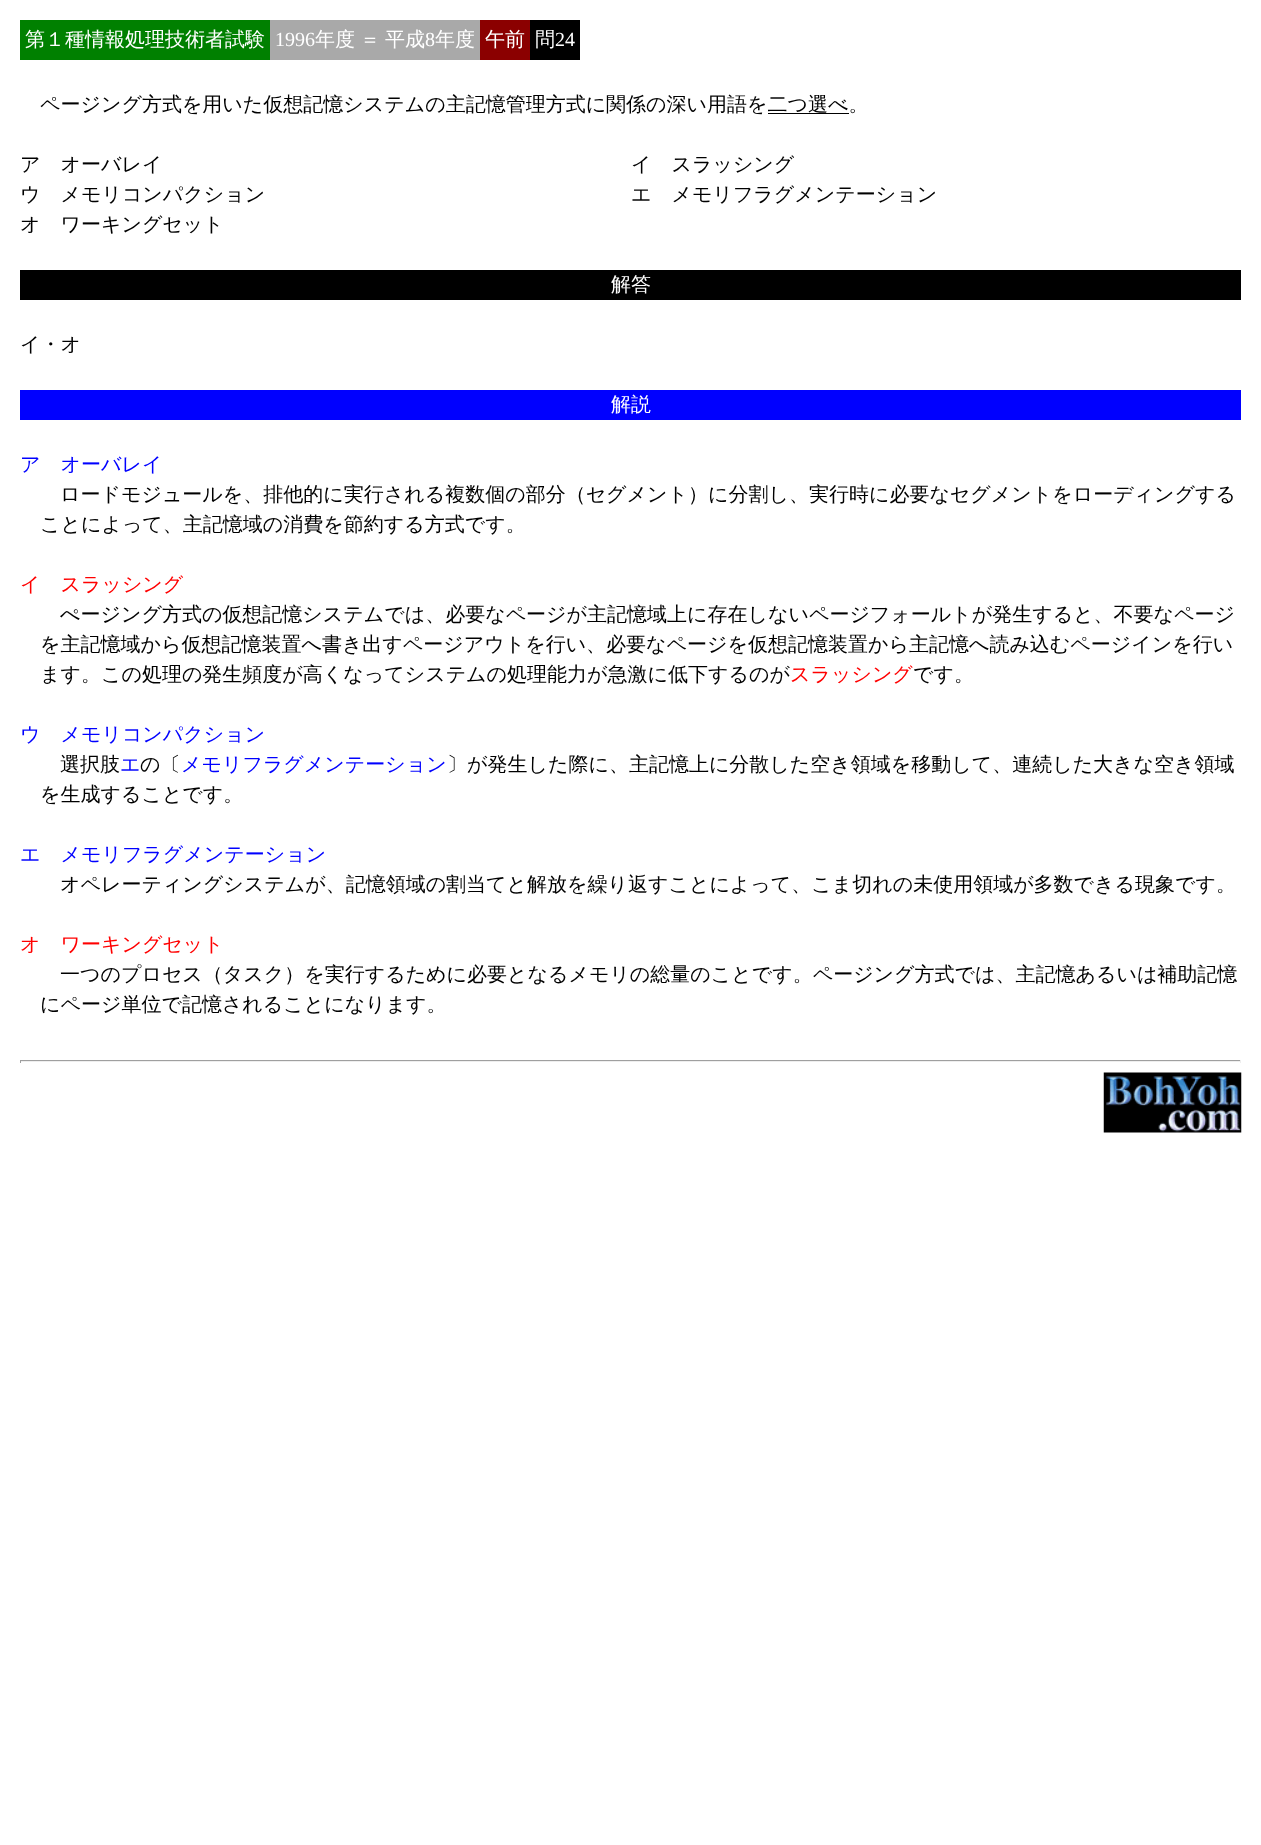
<!DOCTYPE html>
<meta charset="utf-8">
<style>body { margin: 0 } canvas { display: block }</style>
<canvas id="canvas" width="1261" height="1845"></canvas>
<img id="img1" src="images/1.png" hidden>
<script>
window.onload = function () {
    const canvas = document.getElementById('canvas');
    const context = canvas.getContext('2d');
    context.miterLimit = 4;
    context.fontKerning = 'normal';

    context.fillStyle = 'rgb(255, 255, 255)';
    context.fillRect(0, 0, 1261, 1845);
    context.fillStyle = 'rgb(0, 128, 0)';
    context.fillRect(20, 20, 250, 40);
    context.fillStyle = 'rgb(169, 169, 169)';
    context.fillRect(270, 20, 210, 40);
    context.fillStyle = 'rgb(139, 0, 0)';
    context.fillRect(480, 20, 50, 40);
    context.fillStyle = 'rgb(0, 0, 0)';
    context.fillRect(530, 20, 50, 40);
    context.fillRect(768, 113, 81, 1);
    context.fillRect(20, 270, 1221, 30);
    context.fillStyle = 'rgb(0, 0, 255)';
    context.fillRect(20, 390, 1221, 30);
    context.fillStyle = 'rgb(159, 159, 159)';
    context.fillRect(20, 1060, 1221, 1);
    context.fillStyle = 'rgb(238, 238, 238)';
    context.fillRect(1240, 1060, 1, 3);
    context.fillRect(20, 1061, 1221, 1);
    context.fillStyle = 'rgb(159, 159, 159)';
    context.fillRect(20, 1060, 1, 3);
    context.drawImage(document.getElementById('img1'), 1103, 1072, 139, 61);
    context.font = '500 20px WenQuanYi Zen Hei';
    context.fillStyle = 'rgb(255, 255, 255)';
    context.fillText('第１種情報処理技術者試験', 25, 46);
    context.font = '20px Liberation Serif';
    context.fillText('1996', 275, 46);
    context.wordSpacing = '-1px';
    context.font = '500 20px WenQuanYi Zen Hei';
    context.fillText('年度 ＝ 平成', 315, 46);
    context.wordSpacing = '0px';
    context.font = '20px Liberation Serif';
    context.fillText('8', 425, 46);
    context.font = '500 20px WenQuanYi Zen Hei';
    context.fillText('年度', 435, 46);
    context.fillText('午前', 485, 46);
    context.fillText('問', 535, 46);
    context.font = '20px Liberation Serif';
    context.fillText('24', 555, 46);
    context.font = '500 20px WenQuanYi Zen Hei';
    context.fillStyle = 'rgb(0, 0, 0)';
    context.fillText('ページング方式を用いた仮想記憶システムの主記憶管理方式に関係の深い用語を二つ選べ。', 40, 111);
    context.fillText('ア　オーバレイ', 20, 171);
    context.fillText('イ　スラッシング', 631, 171);
    context.fillText('ウ　メモリコンパクション', 20, 201);
    context.fillText('エ　メモリフラグメンテーション', 631, 201);
    context.fillText('オ　ワーキングセット', 20, 231);
    context.fillStyle = 'rgb(255, 255, 255)';
    context.fillText('解答', 611, 291);
    context.fillStyle = 'rgb(0, 0, 0)';
    context.fillText('イ・オ', 20, 351);
    context.fillStyle = 'rgb(255, 255, 255)';
    context.fillText('解説', 611, 411);
    context.fillStyle = 'rgb(0, 0, 255)';
    context.fillText('ア　オーバレイ', 20, 471);
    context.fillStyle = 'rgb(0, 0, 0)';
    context.fillText('ロードモジュールを、排他的に実行される複数個の部分（セグメント）に分割し、実行時に必要なセグメントをローディングする', 60, 501);
    context.fillText('ことによって、主記憶域の消費を節約する方式です。', 40, 531);
    context.fillStyle = 'rgb(255, 0, 0)';
    context.fillText('イ　スラッシング', 20, 591);
    context.fillStyle = 'rgb(0, 0, 0)';
    context.fillText('ぺージング方式の仮想記憶システムでは、必要なページが主記憶域上に存在しないページフォールトが発生すると、不要なページ', 60, 621);
    context.fillText('を主記憶域から仮想記憶装置へ書き出すページアウトを行い、必要なページを仮想記憶装置から主記憶へ読み込むページインを行い', 40, 651);
    context.fillText('ます。この処理の発生頻度が高くなってシステムの処理能力が急激に低下するのが', 40, 681);
    context.fillStyle = 'rgb(255, 0, 0)';
    context.fillText('スラッシング', 790, 681);
    context.fillStyle = 'rgb(0, 0, 0)';
    context.fillText('です。', 913, 681);
    context.fillStyle = 'rgb(0, 0, 255)';
    context.fillText('ウ　メモリコンパクション', 20, 741);
    context.fillStyle = 'rgb(0, 0, 0)';
    context.fillText('選択肢', 60, 771);
    context.fillStyle = 'rgb(0, 0, 255)';
    context.fillText('エ', 120, 771);
    context.fillStyle = 'rgb(0, 0, 0)';
    context.fillText('の〔', 140, 771);
    context.fillStyle = 'rgb(0, 0, 255)';
    context.fillText('メモリフラグメンテーション', 181, 771);
    context.fillStyle = 'rgb(0, 0, 0)';
    context.fillText('〕が発生した際に、主記憶上に分散した空き領域を移動して、連続した大きな空き領域', 447, 771);
    context.fillText('を生成することです。', 40, 801);
    context.fillStyle = 'rgb(0, 0, 255)';
    context.fillText('エ　メモリフラグメンテーション', 20, 861);
    context.fillStyle = 'rgb(0, 0, 0)';
    context.fillText('オペレーティングシステムが、記憶領域の割当てと解放を繰り返すことによって、こま切れの未使用領域が多数できる現象です。', 60, 891);
    context.fillStyle = 'rgb(255, 0, 0)';
    context.fillText('オ　ワーキングセット', 20, 951);
    context.fillStyle = 'rgb(0, 0, 0)';
    context.fillText('一つのプロセス（タスク）を実行するために必要となるメモリの総量のことです。ページング方式では、主記憶あるいは補助記憶', 60, 981);
    context.fillText('にページ単位で記憶されることになります。', 40, 1011);
};
</script>
